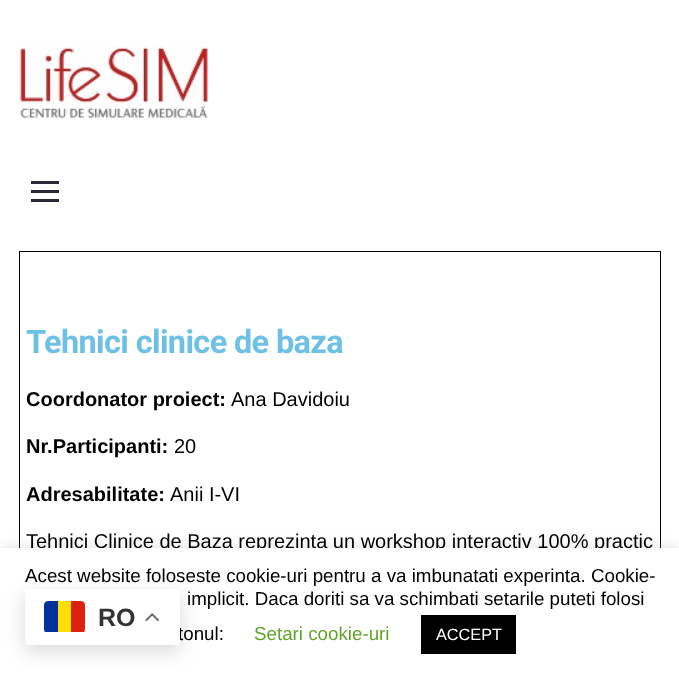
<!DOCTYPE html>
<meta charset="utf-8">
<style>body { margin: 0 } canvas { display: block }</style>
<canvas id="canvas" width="679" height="674"></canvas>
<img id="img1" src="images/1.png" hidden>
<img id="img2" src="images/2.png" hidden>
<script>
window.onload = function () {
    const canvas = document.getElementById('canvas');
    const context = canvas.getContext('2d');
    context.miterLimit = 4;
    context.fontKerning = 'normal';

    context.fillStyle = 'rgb(255, 255, 255)';
    context.fillRect(0, 0, 679, 674);
    context.drawImage(document.getElementById('img1'), 19, 46, 189, 73);
    context.fillStyle = 'rgb(41, 41, 58)';
    context.fillRect(31, 190, 28, 3);
    context.fillRect(31, 181, 28, 3);
    context.fillRect(31, 199, 28, 3);
    context.fillStyle = 'rgb(0, 0, 0)';
    context.fillRect(19, 251, 642, 1);
    context.fillRect(660, 251, 1, 297);
    context.fillRect(19, 251, 1, 297);
    context.fillStyle = 'rgba(172, 171, 171, 0.3)';
    context.filter = 'blur(6px)';
    context.beginPath();
    context.rect(0, 546, 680, 128);
    context.fill();
    context.filter = 'none';
    context.letterSpacing = '-0.65px';
    context.font = 'bold 32.5px Roboto';
    context.fillStyle = 'rgb(110, 193, 228)';
    context.fillText('Tehnici clinice de baza', 26, 353);
    context.letterSpacing = '0px';
    context.font = 'bold 20px Liberation Sans';
    context.fillStyle = 'rgb(0, 0, 0)';
    context.fillText('Coordonator proiect:', 26, 406);
    context.font = '20px Liberation Sans';
    context.fillText('Ana Davidoiu', 231, 406);
    context.font = 'bold 20px Liberation Sans';
    context.fillText('Nr.Participanti:', 26, 453);
    context.font = '20px Liberation Sans';
    context.fillText('20', 174, 453);
    context.font = 'bold 20px Liberation Sans';
    context.fillText('Adresabilitate:', 26, 501);
    context.font = '20px Liberation Sans';
    context.fillText('Anii I-VI', 170, 501);
    context.fillText('Tehnici Clinice de Baza reprezinta un workshop interactiv 100% practic', 26, 548);
    context.fillStyle = 'rgb(255, 255, 255)';
    context.fillRect(0, 548, 679, 126);
    context.font = '18.75px Liberation Sans';
    context.fillStyle = 'rgb(0, 0, 0)';
    context.fillText('Acest website foloseste cookie-uri pentru a va imbunatati experinta. Cookie-', 25, 582);
    context.fillText('implicit. Daca doriti sa va schimbati setarile puteti folosi', 187, 605);
    context.fillText('tonul:', 178, 640);
    context.fillStyle = 'rgb(98, 163, 41)';
    context.fillText('Setari cookie-uri', 254, 640);
    context.fillStyle = 'rgb(0, 0, 0)';
    context.fillRect(421, 615, 95, 39);
    context.font = '16.25px Liberation Sans';
    context.fillStyle = 'rgb(255, 255, 255)';
    context.fillText('ACCEPT', 436, 640);
    context.fillStyle = 'rgba(0, 0, 0, 0.15)';
    context.filter = 'blur(9.5px)';
    context.beginPath();
    context.roundRect(25, 595, 155, 56, 2.5);
    context.fill();
    context.filter = 'none';
    context.fillStyle = 'rgb(255, 255, 255)';
    context.beginPath();
    context.roundRect(25, 589, 155, 56, 2.5);
    context.fill();
    context.save();
    context.beginPath();
    context.roundRect(44, 601, 41, 32, 4);
    context.clip();
    context.fillStyle = 'rgb(0, 49, 156)';
    context.beginPath();
    context.roundRect(44, 601, 14, 31, [4, 0, 0, 0]);
    context.fill();
    context.restore();
    context.fillStyle = 'rgb(255, 222, 0)';
    context.fillRect(58, 601, 13, 31);
    context.save();
    context.beginPath();
    context.roundRect(44, 601, 41, 32, 4);
    context.clip();
    context.fillStyle = 'rgb(222, 33, 16)';
    context.beginPath();
    context.roundRect(71, 601, 14, 31, [0, 4, 0, 0]);
    context.fill();
    context.restore();
    context.font = 'bold 25px Liberation Sans';
    context.fillStyle = 'rgb(51, 51, 51)';
    context.fillText('RO', 98, 626);
    context.drawImage(document.getElementById('img2'), 145, 613, 14, 9);
};
</script>
